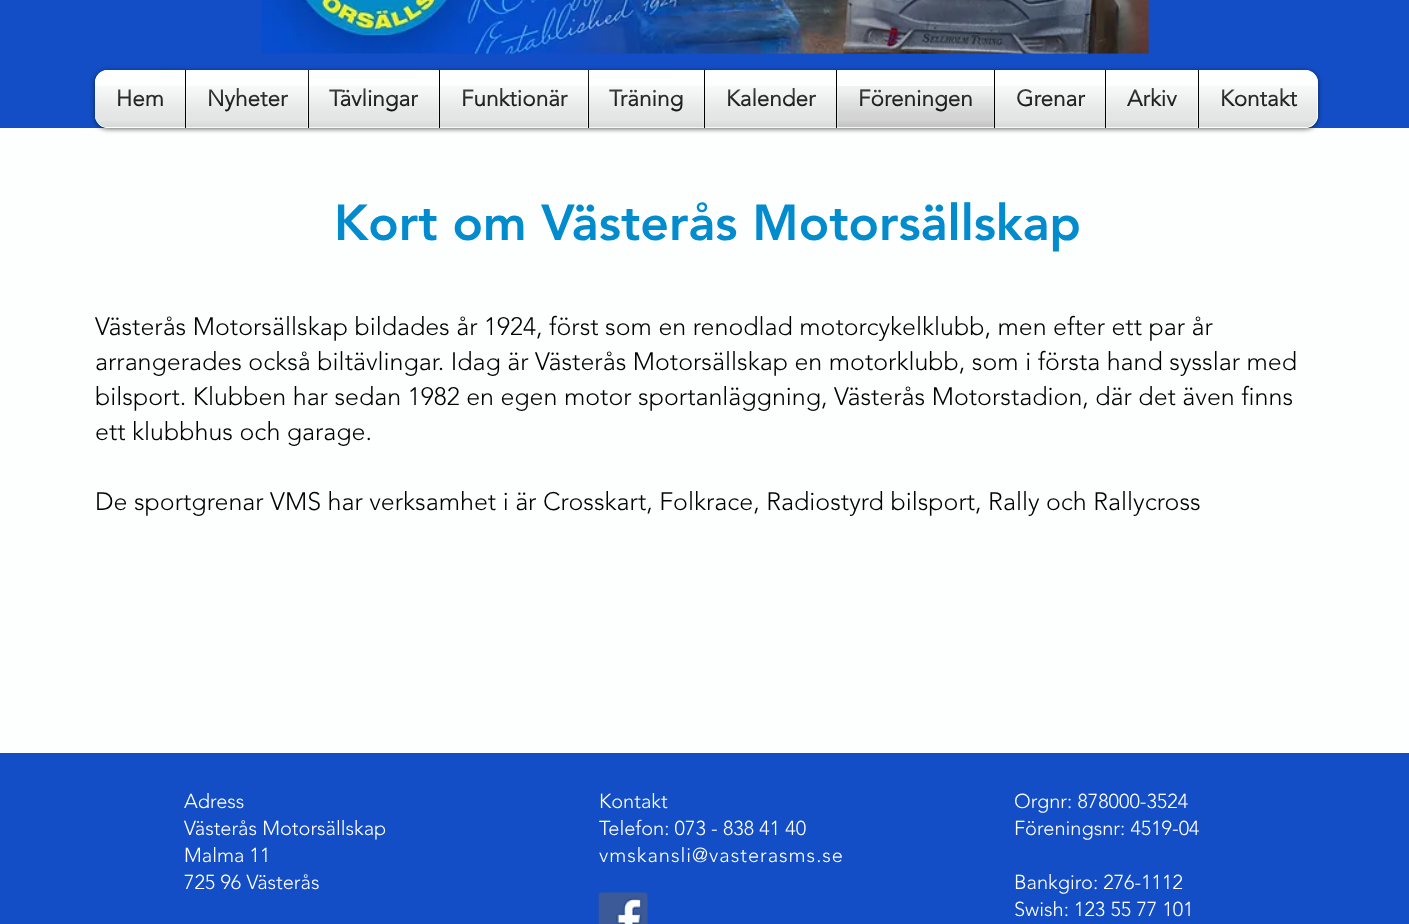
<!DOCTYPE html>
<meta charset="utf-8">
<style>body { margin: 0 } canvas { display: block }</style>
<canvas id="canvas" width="1409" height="924"></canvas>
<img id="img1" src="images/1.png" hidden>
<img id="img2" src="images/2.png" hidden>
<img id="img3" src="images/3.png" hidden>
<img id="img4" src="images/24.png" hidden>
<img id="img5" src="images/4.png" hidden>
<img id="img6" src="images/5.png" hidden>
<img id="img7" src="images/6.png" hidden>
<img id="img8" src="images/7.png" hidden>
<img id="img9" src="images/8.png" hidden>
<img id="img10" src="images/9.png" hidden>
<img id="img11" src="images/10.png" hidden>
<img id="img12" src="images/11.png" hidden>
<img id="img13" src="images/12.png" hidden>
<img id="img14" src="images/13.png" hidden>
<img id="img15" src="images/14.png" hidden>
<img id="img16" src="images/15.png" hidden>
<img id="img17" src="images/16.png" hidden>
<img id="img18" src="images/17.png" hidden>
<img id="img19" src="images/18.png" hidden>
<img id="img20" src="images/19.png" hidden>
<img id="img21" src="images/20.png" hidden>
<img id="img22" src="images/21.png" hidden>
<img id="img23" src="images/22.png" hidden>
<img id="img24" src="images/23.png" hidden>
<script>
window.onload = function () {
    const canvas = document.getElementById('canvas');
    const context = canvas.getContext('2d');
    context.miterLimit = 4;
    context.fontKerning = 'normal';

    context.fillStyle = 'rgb(253, 254, 254)';
    context.fillRect(0, 0, 1409, 924);
    context.fillStyle = 'rgb(19, 78, 198)';
    context.fillRect(0, 0, 1409, 128);
    context.drawImage(document.getElementById('img1'), 261, 0, 888, 54);
    context.fillStyle = 'rgba(0, 0, 0, 0.6)';
    context.filter = 'blur(2.5px)';
    context.beginPath();
    context.roundRect(95, 71, 1223, 58, 13);
    context.fill();
    context.filter = 'none';
    context.fillStyle = 'rgb(253, 254, 254)';
    context.beginPath();
    context.roundRect(95, 70, 1223, 58, 13);
    context.fill();
    context.drawImage(document.getElementById('img2'), 95, 70, 1222, 13);
    context.drawImage(document.getElementById('img3'), 95, 86, 1217, 41);
    context.beginPath();
    context.roundRect(95, 70, 90, 58, [13, 0, 0, 13]);
    context.fill();
    context.fillRect(186, 86, 122, 41);
    context.fillStyle = 'rgb(0, 0, 0)';
    context.fillRect(185, 70, 1, 58);
    context.fillStyle = 'rgb(253, 254, 254)';
    context.fillRect(309, 86, 130, 41);
    context.fillStyle = 'rgb(0, 0, 0)';
    context.fillRect(308, 70, 1, 58);
    context.fillStyle = 'rgb(253, 254, 254)';
    context.fillRect(440, 86, 148, 41);
    context.fillStyle = 'rgb(0, 0, 0)';
    context.fillRect(439, 70, 1, 58);
    context.fillStyle = 'rgb(253, 254, 254)';
    context.fillRect(589, 86, 115, 41);
    context.fillStyle = 'rgb(0, 0, 0)';
    context.fillRect(588, 70, 1, 58);
    context.fillStyle = 'rgb(253, 254, 254)';
    context.fillRect(705, 86, 131, 41);
    context.fillStyle = 'rgb(0, 0, 0)';
    context.fillRect(704, 70, 1, 58);
    context.fillStyle = 'rgba(255, 255, 255, 0.28)';
    context.fillRect(837, 89, 157, 38);
    context.fillStyle = 'rgb(0, 0, 0)';
    context.fillRect(836, 70, 1, 58);
    context.fillStyle = 'rgb(253, 254, 254)';
    context.fillRect(995, 86, 110, 41);
    context.fillStyle = 'rgb(0, 0, 0)';
    context.fillRect(994, 70, 1, 58);
    context.fillStyle = 'rgb(253, 254, 254)';
    context.fillRect(1106, 86, 92, 41);
    context.fillStyle = 'rgb(0, 0, 0)';
    context.fillRect(1105, 70, 1, 58);
    context.fillStyle = 'rgb(253, 254, 254)';
    context.beginPath();
    context.roundRect(1198, 70, 120, 58, [0, 13, 13, 0]);
    context.fill();
    context.fillStyle = 'rgb(0, 0, 0)';
    context.fillRect(1198, 70, 1, 58);
    context.fillStyle = 'rgb(19, 78, 198)';
    context.fillRect(0, 753, 1409, 171);
    context.drawImage(document.getElementById('img4'), 598, 892, 50, 32);
    context.font = 'bold 22.5px "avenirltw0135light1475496"';
    context.fillStyle = 'rgb(0, 0, 0)';
    context.fillText('Hem', 116, 106);
    context.drawImage(document.getElementById('img5'), 95, 70, 68, 37);
    context.drawImage(document.getElementById('img6'), 95, 86, 90, 41);
    context.fillText('Nyheter', 207, 106);
    context.drawImage(document.getElementById('img7'), 208, 89, 79, 23);
    context.drawImage(document.getElementById('img8'), 186, 86, 122, 42);
    context.fillText('Tävlingar', 329, 106);
    context.drawImage(document.getElementById('img9'), 308, 70, 110, 42);
    context.drawImage(document.getElementById('img10'), 309, 86, 130, 42);
    context.fillText('Funktionär', 461, 106);
    context.drawImage(document.getElementById('img11'), 462, 89, 105, 18);
    context.drawImage(document.getElementById('img12'), 440, 86, 148, 42);
    context.fillText('Träning', 609, 106);
    context.drawImage(document.getElementById('img13'), 588, 70, 94, 42);
    context.drawImage(document.getElementById('img14'), 589, 86, 115, 42);
    context.fillText('Kalender', 726, 106);
    context.drawImage(document.getElementById('img15'), 728, 89, 87, 18);
    context.drawImage(document.getElementById('img16'), 705, 86, 131, 42);
    context.fillText('Föreningen', 858, 106);
    context.drawImage(document.getElementById('img17'), 860, 90, 112, 22);
    context.drawImage(document.getElementById('img18'), 837, 86, 157, 42);
    context.fillText('Grenar', 1016, 106);
    context.drawImage(document.getElementById('img19'), 1016, 89, 68, 18);
    context.drawImage(document.getElementById('img20'), 995, 86, 110, 42);
    context.fillText('Arkiv', 1127, 106);
    context.drawImage(document.getElementById('img21'), 1127, 89, 50, 17);
    context.drawImage(document.getElementById('img22'), 1106, 86, 92, 42);
    context.fillText('Kontakt', 1220, 106);
    context.drawImage(document.getElementById('img23'), 1198, 70, 111, 37);
    context.drawImage(document.getElementById('img24'), 1199, 86, 118, 41);
    context.font = '900 50px "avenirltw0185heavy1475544"';
    context.fillStyle = 'rgb(3, 140, 205)';
    context.fillText('Kort om Västerås Motorsällskap', 334, 240);
    context.font = '300 25px "avenirltw0135light1475496"';
    context.fillStyle = 'rgb(0, 0, 0)';
    context.fillText('Västerås Motorsällskap bildades år 1924, först som en renodlad motorcykelklubb, men efter ett par år', 95, 335);
    context.fillText('arrangerades också biltävlingar. Idag är Västerås Motorsällskap en motorklubb, som i första hand sysslar med', 95, 370);
    context.fillText('bilsport. Klubben har sedan 1982 en egen motor sportanläggning, Västerås Motorstadion, där det även finns', 95, 405);
    context.fillText('ett klubbhus och garage.', 95, 440);
    context.fillText('De sportgrenar VMS har verksamhet i är Crosskart, Folkrace, Radiostyrd bilsport, Rally och Rallycross', 95, 510);
    context.font = '300 20px "avenirltw0135light1475496"';
    context.fillStyle = 'rgb(255, 255, 255)';
    context.fillText('Adress', 184, 808);
    context.fillText('Västerås Motorsällskap', 184, 835);
    context.fillText('Malma 11', 184, 862);
    context.fillText('725 96 Västerås', 184, 889);
    context.fillText('Kontakt', 599, 808);
    context.fillText('Telefon: 073 - 838 41 40', 599, 835);
    context.letterSpacing = '1px';
    context.fillText('vmskansli@vasterasms.se', 599, 862);
    context.letterSpacing = '0px';
    context.fillText('Orgnr: 878000-3524', 1014, 808);
    context.fillText('Föreningsnr: 4519-04', 1014, 835);
    context.fillText('Bankgiro: 276-1112', 1014, 889);
    context.fillText('Swish: 123 55 77 101', 1014, 916);
};
</script>
